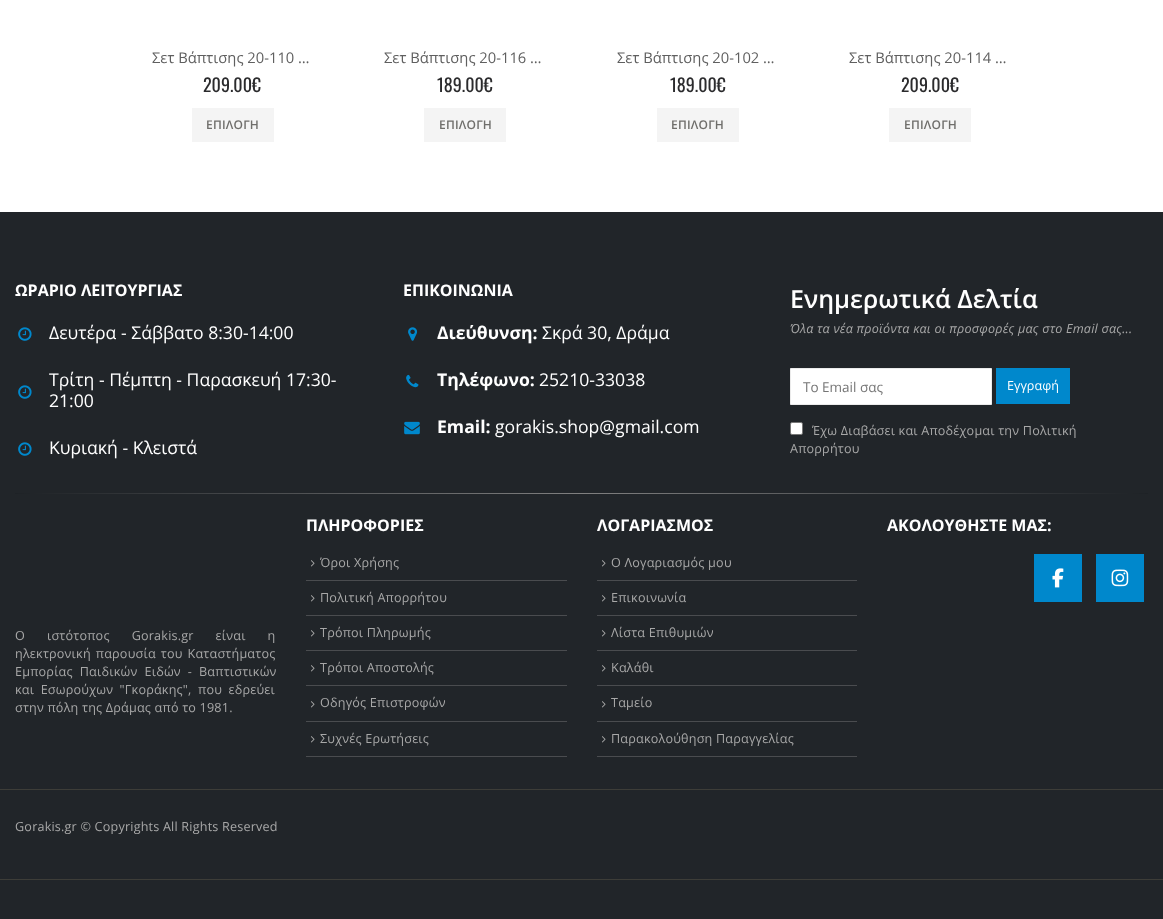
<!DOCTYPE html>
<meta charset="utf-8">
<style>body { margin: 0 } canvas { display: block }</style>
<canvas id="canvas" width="1163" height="919"></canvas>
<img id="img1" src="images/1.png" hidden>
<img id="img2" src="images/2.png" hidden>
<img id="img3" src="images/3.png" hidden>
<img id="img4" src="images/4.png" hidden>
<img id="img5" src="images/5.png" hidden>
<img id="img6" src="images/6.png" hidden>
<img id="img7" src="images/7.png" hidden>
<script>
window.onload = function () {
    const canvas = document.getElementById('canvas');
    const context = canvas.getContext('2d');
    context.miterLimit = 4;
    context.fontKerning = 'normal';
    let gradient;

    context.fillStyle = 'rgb(255, 255, 255)';
    context.fillRect(0, 0, 1163, 919);
    context.fillStyle = 'rgb(244, 244, 244)';
    context.fillRect(192, 108, 82, 34);
    context.fillRect(424, 108, 82, 34);
    context.fillRect(657, 108, 82, 34);
    context.fillRect(889, 108, 82, 34);
    context.fillStyle = 'rgb(33, 37, 41)';
    context.fillRect(0, 212, 1163, 707);
    context.fillStyle = 'rgb(61, 61, 56)';
    context.fillRect(0, 879, 1163, 1);
    context.drawImage(document.getElementById('img1'), 18, 327, 14, 14);
    context.drawImage(document.getElementById('img1'), 18, 385, 14, 14);
    context.drawImage(document.getElementById('img1'), 18, 442, 14, 14);
    context.drawImage(document.getElementById('img2'), 408, 327, 10, 14);
    context.drawImage(document.getElementById('img3'), 406, 374, 13, 14);
    context.drawImage(document.getElementById('img4'), 404, 421, 16, 14);
    context.fillStyle = 'rgb(255, 255, 255)';
    context.beginPath();
    context.rect(790.5, 368.5, 201, 36);
    context.fill();
    context.strokeStyle = 'rgb(235, 235, 235)';
    context.stroke();
    context.fillStyle = 'rgb(0, 136, 204)';
    context.fillRect(996, 368, 74, 36);
    context.fillStyle = 'rgb(255, 255, 255)';
    context.beginPath();
    context.roundRect(790.5, 422.5, 12, 12, 1.5);
    context.fill();
    context.strokeStyle = 'rgb(118, 118, 118)';
    context.stroke();
    gradient = context.createLinearGradient(15, 494, 1148, 493);
    gradient.addColorStop(0, 'rgb(30, 34, 38)');
    gradient.addColorStop(0.5, 'rgb(128, 128, 128)');
    gradient.addColorStop(1, 'rgb(30, 34, 38)');
    context.fillStyle = gradient;
    context.fillRect(15, 493, 1133, 1);
    context.fillStyle = 'rgb(74, 76, 79)';
    context.fillRect(306, 756, 261, 1);
    context.drawImage(document.getElementById('img5'), 311, 560, 4, 7);
    context.fillRect(306, 580, 261, 1);
    context.drawImage(document.getElementById('img5'), 311, 595, 4, 7);
    context.fillRect(306, 615, 261, 1);
    context.drawImage(document.getElementById('img5'), 311, 630, 4, 7);
    context.fillRect(306, 650, 261, 1);
    context.drawImage(document.getElementById('img5'), 311, 665, 4, 7);
    context.fillRect(306, 685, 261, 1);
    context.drawImage(document.getElementById('img5'), 311, 701, 4, 7);
    context.fillRect(306, 721, 261, 1);
    context.drawImage(document.getElementById('img5'), 311, 736, 4, 7);
    context.fillRect(597, 756, 260, 1);
    context.drawImage(document.getElementById('img5'), 602, 560, 4, 7);
    context.fillRect(597, 580, 260, 1);
    context.drawImage(document.getElementById('img5'), 602, 595, 4, 7);
    context.fillRect(597, 615, 260, 1);
    context.drawImage(document.getElementById('img5'), 602, 630, 4, 7);
    context.fillRect(597, 650, 260, 1);
    context.drawImage(document.getElementById('img5'), 602, 665, 4, 7);
    context.fillRect(597, 685, 260, 1);
    context.drawImage(document.getElementById('img5'), 602, 701, 4, 7);
    context.fillRect(597, 721, 260, 1);
    context.drawImage(document.getElementById('img5'), 602, 736, 4, 7);
    context.fillStyle = 'rgb(0, 136, 204)';
    context.fillRect(1034, 554, 48, 48);
    context.drawImage(document.getElementById('img6'), 1052, 568, 12, 20);
    context.fillRect(1096, 554, 48, 48);
    context.drawImage(document.getElementById('img7'), 1111, 569, 18, 18);
    context.fillStyle = 'rgb(61, 61, 56)';
    context.fillRect(0, 789, 1163, 1);
    context.font = '14.75px Open Sans';
    context.fillStyle = 'rgb(95, 95, 95)';
    context.fillText('Σετ Βάπτισης 20-110 …', 152, 63);
    context.font = '18px Oswald';
    context.fillStyle = 'rgb(43, 43, 45)';
    context.fillText('209.00€', 203, 92);
    context.letterSpacing = '0.2px';
    context.font = '600 12px Open Sans';
    context.fillStyle = 'rgb(111, 110, 107)';
    context.fillText('ΕΠΙΛΟΓΗ', 206, 129);
    context.letterSpacing = '0px';
    context.font = '14.75px Open Sans';
    context.fillStyle = 'rgb(95, 95, 95)';
    context.fillText('Σετ Βάπτισης 20-116 …', 384, 63);
    context.font = '18px Oswald';
    context.fillStyle = 'rgb(43, 43, 45)';
    context.fillText('189.00€', 437, 92);
    context.letterSpacing = '0.2px';
    context.font = '600 12px Open Sans';
    context.fillStyle = 'rgb(111, 110, 107)';
    context.fillText('ΕΠΙΛΟΓΗ', 439, 129);
    context.letterSpacing = '0px';
    context.font = '14.75px Open Sans';
    context.fillStyle = 'rgb(95, 95, 95)';
    context.fillText('Σετ Βάπτισης 20-102 …', 617, 63);
    context.font = '18px Oswald';
    context.fillStyle = 'rgb(43, 43, 45)';
    context.fillText('189.00€', 670, 92);
    context.letterSpacing = '0.2px';
    context.font = '600 12px Open Sans';
    context.fillStyle = 'rgb(111, 110, 107)';
    context.fillText('ΕΠΙΛΟΓΗ', 671, 129);
    context.letterSpacing = '0px';
    context.font = '14.75px Open Sans';
    context.fillStyle = 'rgb(95, 95, 95)';
    context.fillText('Σετ Βάπτισης 20-114 …', 849, 63);
    context.font = '18px Oswald';
    context.fillStyle = 'rgb(43, 43, 45)';
    context.fillText('209.00€', 901, 92);
    context.letterSpacing = '0.2px';
    context.font = '600 12px Open Sans';
    context.fillStyle = 'rgb(111, 110, 107)';
    context.fillText('ΕΠΙΛΟΓΗ', 904, 129);
    context.letterSpacing = '0px';
    context.font = 'bold 16px Open Sans';
    context.fillStyle = 'rgb(255, 255, 255)';
    context.fillText('ΩΡΑΡΙΟ ΛΕΙΤΟΥΡΓΙΑΣ', 15, 296);
    context.font = '17.6px Open Sans';
    context.fillText('Δευτέρα - Σάββατο 8:30-14:00', 49, 339);
    context.fillText('Τρίτη - Πέμπτη - Παρασκευή 17:30-', 49, 386);
    context.fillText('21:00', 49, 407);
    context.fillText('Κυριακή - Κλειστά', 49, 454);
    context.font = 'bold 16px Open Sans';
    context.fillText('ΕΠΙΚΟΙΝΩΝΙΑ', 403, 296);
    context.font = 'bold 17.6px Open Sans';
    context.fillText('Διεύθυνση:', 437, 339);
    context.font = '17.6px Open Sans';
    context.fillText('Σκρά 30, Δράμα', 542, 339);
    context.font = 'bold 17.6px Open Sans';
    context.fillText('Τηλέφωνο:', 437, 386);
    context.font = '17.6px Open Sans';
    context.fillText('25210-33038', 539, 386);
    context.font = 'bold 17.6px Open Sans';
    context.fillText('Email:', 437, 433);
    context.font = '17.6px Open Sans';
    context.fillText('gorakis.shop@gmail.com', 495, 433);
    context.font = '600 25px Open Sans';
    context.fillText('Ενημερωτικά Δελτία', 790, 308);
    context.letterSpacing = '0.2px';
    context.font = 'italic 12.6px Open Sans';
    context.fillStyle = 'rgb(168, 168, 168)';
    context.fillText('Όλα τα νέα προϊόντα και οι προσφορές μας στο Email σας...', 790, 333);
    context.letterSpacing = '0px';
    context.font = '13.5px Open Sans';
    context.fillStyle = 'rgb(117, 117, 117)';
    context.fillText('Το Email σας', 803, 392);
    context.font = '12.6px Open Sans';
    context.fillStyle = 'rgb(255, 255, 255)';
    context.fillText('Εγγραφή', 1007, 390);
    context.letterSpacing = '0.2px';
    context.fillStyle = 'rgb(168, 168, 168)';
    context.fillText('Έχω Διαβάσει και Αποδέχομαι την Πολιτική', 812, 435);
    context.fillText('Απορρήτου', 790, 453);
    context.letterSpacing = '0px';
    context.font = 'bold 16px Open Sans';
    context.fillStyle = 'rgb(255, 255, 255)';
    context.fillText('ΠΛΗΡΟΦΟΡΙΕΣ', 306, 531);
    context.letterSpacing = '0.2px';
    context.font = '12.6px Open Sans';
    context.fillStyle = 'rgb(168, 168, 168)';
    context.fillText('Όροι Χρήσης', 320, 567);
    context.fillText('Πολιτική Απορρήτου', 320, 602);
    context.fillText('Τρόποι Πληρωμής', 320, 637);
    context.fillText('Τρόποι Αποστολής', 320, 672);
    context.fillText('Οδηγός Επιστροφών', 320, 707);
    context.fillText('Συχνές Ερωτήσεις', 320, 743);
    context.letterSpacing = '0px';
    context.font = 'bold 16px Open Sans';
    context.fillStyle = 'rgb(255, 255, 255)';
    context.fillText('ΛΟΓΑΡΙΑΣΜΟΣ', 597, 531);
    context.letterSpacing = '0.2px';
    context.font = '12.6px Open Sans';
    context.fillStyle = 'rgb(168, 168, 168)';
    context.fillText('Ο Λογαριασμός μου', 611, 567);
    context.fillText('Επικοινωνία', 611, 602);
    context.fillText('Λίστα Επιθυμιών', 611, 637);
    context.fillText('Καλάθι', 611, 672);
    context.fillText('Ταμείο', 611, 707);
    context.fillText('Παρακολούθηση Παραγγελίας', 611, 743);
    context.letterSpacing = '0px';
    context.font = 'bold 16px Open Sans';
    context.fillStyle = 'rgb(255, 255, 255)';
    context.fillText('ΑΚΟΛΟΥΘΗΣΤΕ ΜΑΣ:', 887, 531);
    context.letterSpacing = '0.2px';
    context.wordSpacing = '18.5px';
    context.font = '12.6px Open Sans';
    context.fillStyle = 'rgb(168, 168, 168)';
    context.fillText('Ο ιστότοπος Gorakis.gr είναι η', 15, 640);
    context.wordSpacing = '1.5px';
    context.fillText('ηλεκτρονική παρουσία του Καταστήματος', 15, 658);
    context.wordSpacing = '3.5px';
    context.fillText('Εμπορίας Παιδικών Ειδών - Βαπτιστικών', 15, 676);
    context.wordSpacing = '3px';
    context.fillText('και Εσωρούχων "Γκοράκης", που εδρεύει', 15, 694);
    context.wordSpacing = '0px';
    context.fillText('στην πόλη της Δράμας από το 1981.', 15, 712);
    context.fillText('Gorakis.gr © Copyrights All Rights Reserved', 15, 831);
};
</script>
